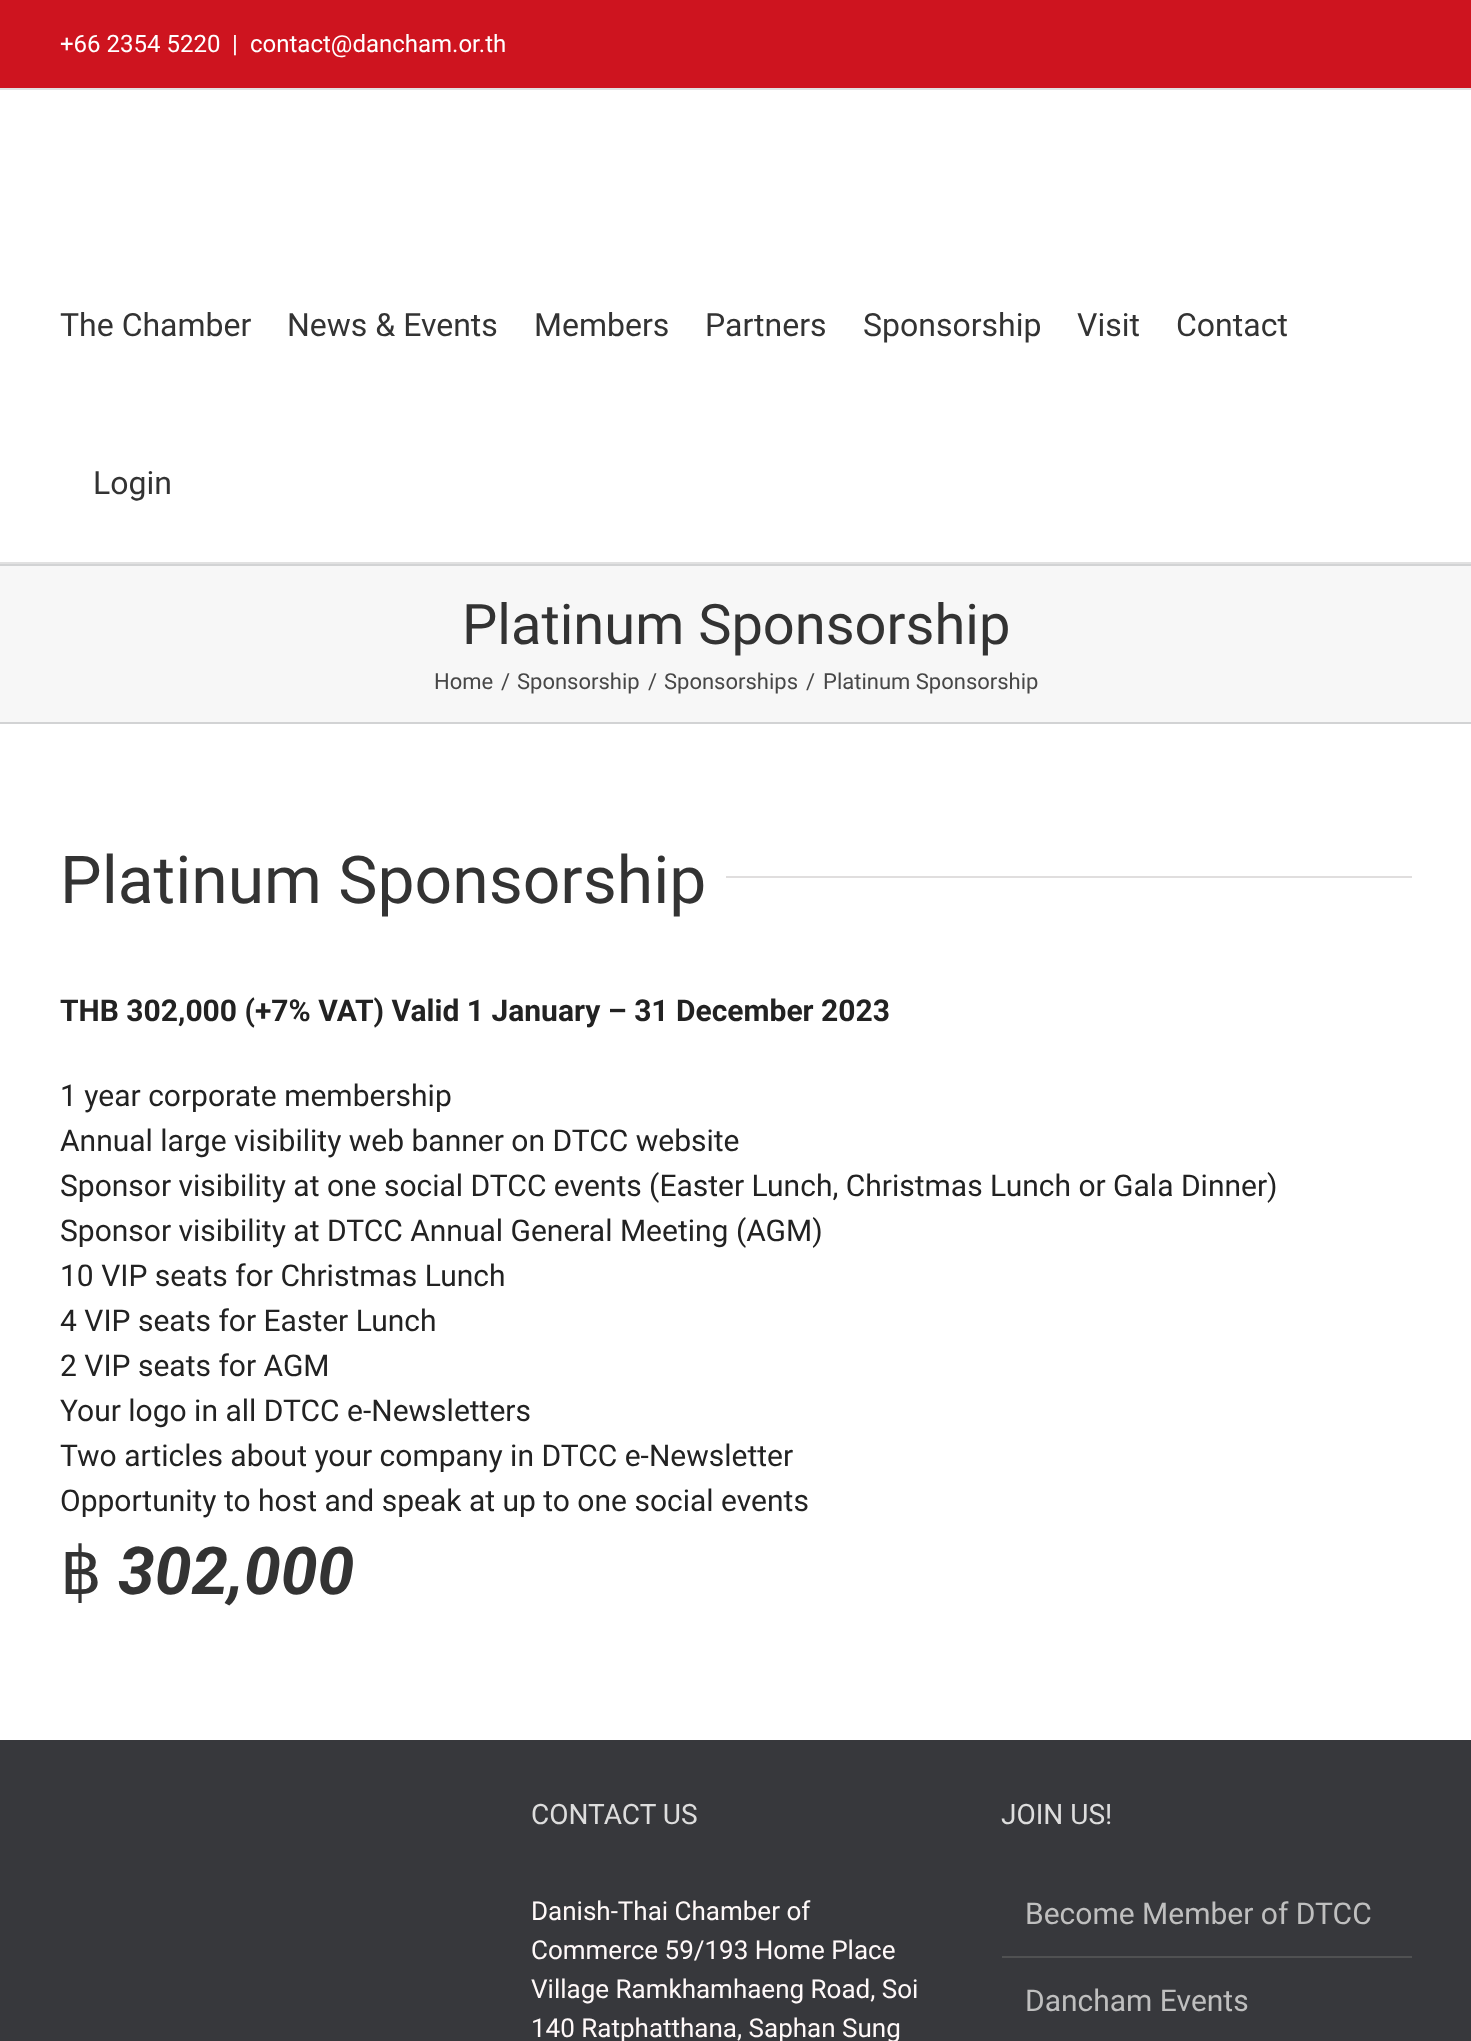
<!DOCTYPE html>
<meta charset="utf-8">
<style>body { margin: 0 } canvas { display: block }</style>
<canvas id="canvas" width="1471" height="2041"></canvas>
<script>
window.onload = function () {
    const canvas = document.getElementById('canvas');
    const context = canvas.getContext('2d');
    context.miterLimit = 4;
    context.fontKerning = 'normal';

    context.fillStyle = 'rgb(255, 255, 255)';
    context.fillRect(0, 0, 1471, 2041);
    context.fillStyle = 'rgb(206, 20, 31)';
    context.fillRect(0, 0, 1471, 88);
    context.fillStyle = 'rgb(225, 225, 225)';
    context.fillRect(0, 88, 1471, 2);
    context.fillRect(0, 562, 1471, 2);
    context.fillStyle = 'rgb(247, 247, 247)';
    context.fillRect(0, 566, 1471, 156);
    context.fillStyle = 'rgb(210, 211, 212)';
    context.fillRect(0, 564, 1471, 2);
    context.fillRect(0, 722, 1471, 2);
    context.fillStyle = 'rgb(224, 222, 222)';
    context.fillRect(726, 876, 686, 2);
    context.fillStyle = 'rgb(55, 56, 60)';
    context.fillRect(0, 1740, 1471, 301);
    context.fillStyle = 'rgb(80, 81, 82)';
    context.fillRect(1002, 1956, 410, 2);
    context.font = '24px Roboto';
    context.fillStyle = 'rgb(255, 255, 255)';
    context.fillText('+66 2354 5220', 60, 52);
    context.fillText('|', 232, 52);
    context.fillText('contact@dancham.or.th', 250, 52);
    context.font = '32px Roboto';
    context.fillStyle = 'rgb(51, 51, 51)';
    context.fillText('The Chamber', 60, 336);
    context.fillText('News & Events', 287, 336);
    context.fillText('Members', 534, 336);
    context.fillText('Partners', 705, 336);
    context.fillText('Sponsorship', 863, 336);
    context.fillText('Visit', 1077, 336);
    context.fillText('Contact', 1176, 336);
    context.fillText('Login', 93, 494);
    context.font = '56px Roboto';
    context.fillText('Platinum Sponsorship', 462, 644);
    context.font = '22px Roboto';
    context.fillStyle = 'rgb(71, 71, 71)';
    context.fillText('Home', 434, 689);
    context.fillText('/', 501, 689);
    context.fillText('Sponsorship', 517, 689);
    context.fillText('/', 648, 689);
    context.fillText('Sponsorships', 664, 689);
    context.fillText('/', 806, 689);
    context.fillText('Platinum Sponsorship', 823, 689);
    context.font = '66px Roboto';
    context.fillStyle = 'rgb(51, 51, 51)';
    context.fillText('Platinum Sponsorship', 60, 903);
    context.font = 'bold 30px Roboto';
    context.fillStyle = 'rgb(34, 34, 34)';
    context.fillText('THB 302,000 (+7% VAT) Valid 1 January – 31 December 2023', 60, 1021);
    context.font = '30px Roboto';
    context.fillText('1 year corporate membership', 60, 1106);
    context.fillText('Annual large visibility web banner on DTCC website', 60, 1151);
    context.fillText('Sponsor visibility at one social DTCC events (Easter Lunch, Christmas Lunch or Gala Dinner)', 60, 1196);
    context.fillText('Sponsor visibility at DTCC Annual General Meeting (AGM)', 60, 1241);
    context.fillText('10 VIP seats for Christmas Lunch', 60, 1286);
    context.fillText('4 VIP seats for Easter Lunch', 60, 1331);
    context.fillText('2 VIP seats for AGM', 60, 1376);
    context.fillText('Your logo in all DTCC e-Newsletters', 60, 1421);
    context.fillText('Two articles about your company in DTCC e-Newsletter', 60, 1466);
    context.fillText('Opportunity to host and speak at up to one social events', 60, 1511);
    context.font = '66px DejaVu Sans';
    context.fillStyle = 'rgb(51, 51, 51)';
    context.fillText('฿', 60, 1594);
    context.font = 'italic bold 66px Roboto';
    context.fillText('302,000', 118, 1594);
    context.font = '28px Roboto';
    context.fillStyle = 'rgb(221, 221, 221)';
    context.fillText('CONTACT US', 531, 1824);
    context.font = '26px Roboto';
    context.fillStyle = 'rgb(255, 249, 249)';
    context.fillText('Danish-Thai Chamber of', 531, 1920);
    context.fillText('Commerce 59/193 Home Place', 531, 1959);
    context.fillText('Village Ramkhamhaeng Road, Soi', 531, 1998);
    context.fillText('140 Ratphatthana, Saphan Sung', 531, 2037);
    context.font = '28px Roboto';
    context.fillStyle = 'rgb(221, 221, 221)';
    context.fillText('JOIN US!', 1001, 1824);
    context.font = '30px Roboto';
    context.fillStyle = 'rgb(191, 191, 191)';
    context.fillText('Become Member of DTCC', 1025, 1924);
    context.fillText('Dancham Events', 1025, 2011);
};
</script>
